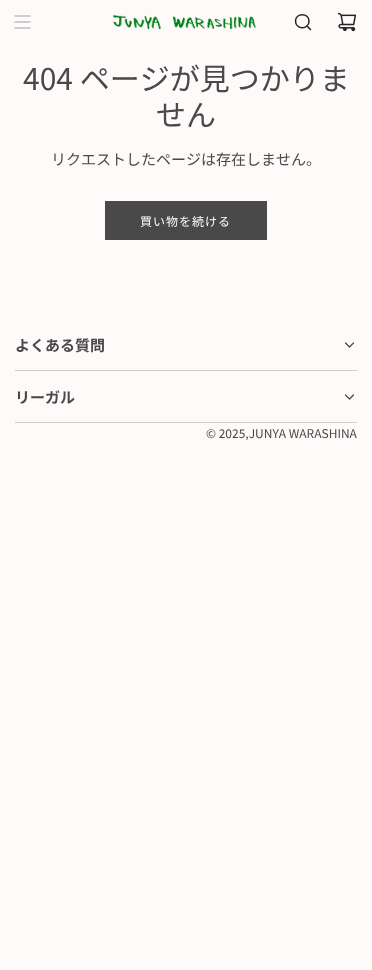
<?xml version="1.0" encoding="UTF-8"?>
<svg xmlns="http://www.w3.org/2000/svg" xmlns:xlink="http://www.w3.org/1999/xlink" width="372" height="970">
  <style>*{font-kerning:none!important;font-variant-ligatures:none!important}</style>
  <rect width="100%" height="100%" fill="#fdfaf9" />
  <path d="M 15 16 h 15 m -15 6 h 15 m -15 6 h 15" fill="none" stroke="#bebebe" stroke-width="1.5" stroke-linecap="round" stroke-linejoin="round" />
  <image x="113" y="15" width="144" height="14" xlink:href="image1.png" />
  <path d="M 307 26 l 3.5 3.5 m -15 -8.5 c 0 9 13.5 9 13.5 0 c 0 -8.5 -13.5 -8.5 -13.5 0 z" fill="none" stroke="#242424" stroke-width="1.5" stroke-linecap="round" stroke-linejoin="round" />
  <image x="337" y="12" width="20" height="20" xlink:href="image2.png" />
  <rect x="105" y="201" width="162" height="39" fill="#494949" />
  <rect x="15" y="370" width="342" height="1" fill="#d0cecd" />
  <path d="M 345.5 343 l 4 4 l 4 -4 m -8 52 l 4 4 l 4 -4" fill="none" stroke="#494949" stroke-width="1.2" stroke-linecap="round" stroke-linejoin="round" />
  <rect x="15" y="422" width="342" height="1" fill="#d0cecd" />
  <text x="23" y="90" style="font-family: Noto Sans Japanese; font-size: 30px; fill: #494949">404 ページが見つかりま</text>
  <text x="156" y="126" style="font-family: Noto Sans Japanese; font-size: 30px; fill: #494949">せん</text>
  <text x="51" y="165" style="font-family: Noto Sans Japanese; font-size: 15px; fill: #494949">リクエストしたページは存在しません。</text>
  <text x="140" y="226" style="font-family: Noto Sans Japanese; font-size: 12px; letter-spacing: 1px; fill: #ffffff">買い物を続ける</text>
  <text x="15" y="351" style="font-family: Noto Sans Japanese; font-size: 15px; font-weight: bold; fill: #494949">よくある質問</text>
  <text x="15" y="403" style="font-family: Noto Sans Japanese; font-size: 15px; font-weight: bold; fill: #494949">リーガル</text>
  <text x="206" y="438" style="font-family: Noto Sans Japanese; font-size: 12px; fill: #494949">© 2025,JUNYA WARASHINA</text>
</svg>
